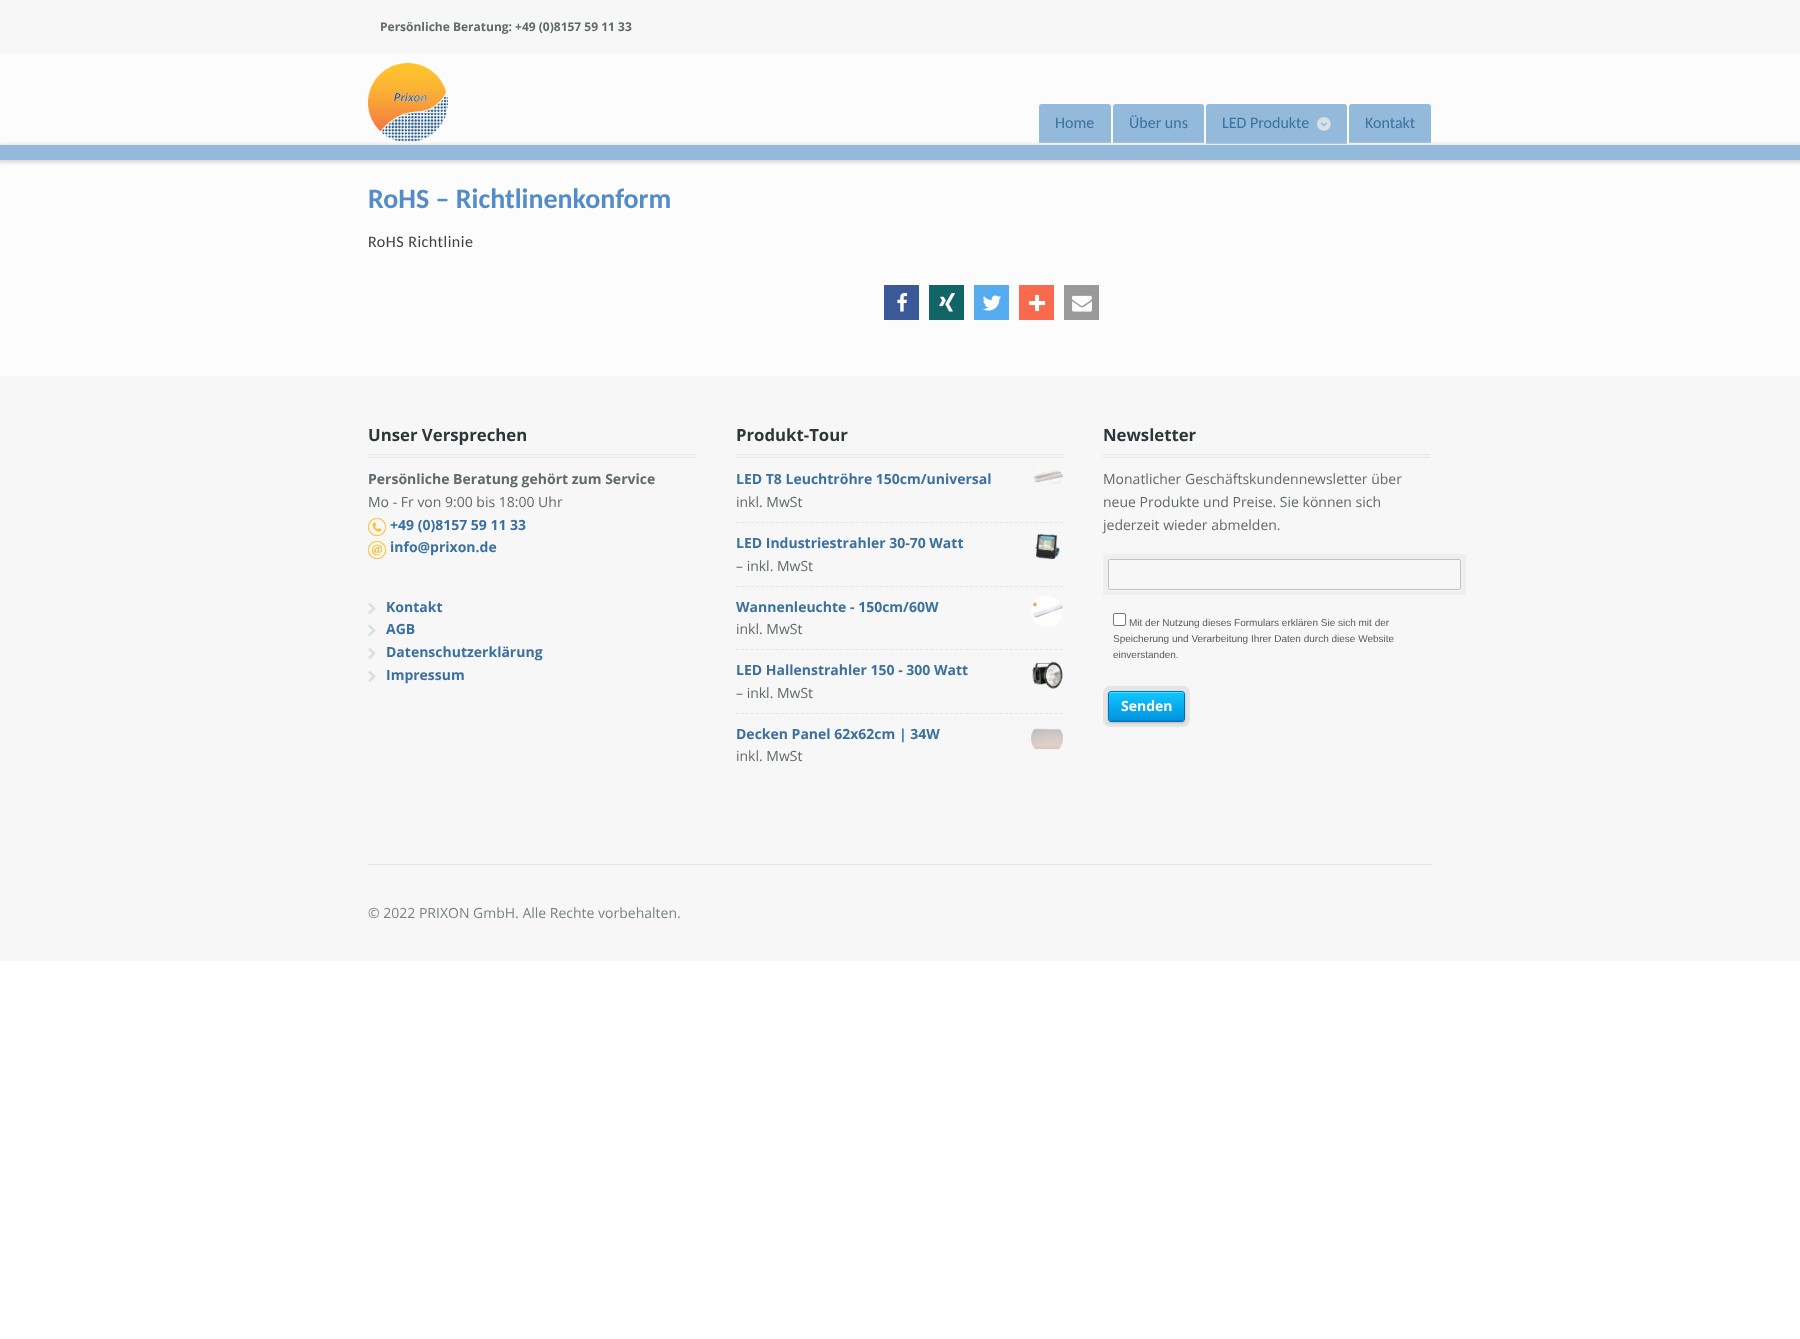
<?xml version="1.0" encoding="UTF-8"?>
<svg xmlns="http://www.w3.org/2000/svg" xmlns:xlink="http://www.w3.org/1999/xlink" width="1800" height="1339">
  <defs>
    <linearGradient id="g1" gradientUnits="userSpaceOnUse" x1="1147" y1="692" x2="1147" y2="721"><stop offset="0" stop-color="#11c6ff" /><stop offset="1" stop-color="#0093dd" /></linearGradient>
  </defs>
  <rect width="100%" height="100%" fill="#ffffff" />
  <rect y="53" width="1800" height="323" fill="#fcfcfc" />
  <rect width="1800" height="53" fill="#f7f7f7" />
  <image x="368" y="63" width="80" height="79" xlink:href="image1.png" />
  <path d="M 1042 103.5 h 66 c 2 0 3.5 1.5 3.5 3.5 v 36.5 h -73 v -36.5 c 0 -2 1.5 -3.5 3.5 -3.5 z" fill="#94badb" stroke="#fcfcfc" />
  <path d="M 1116 103.5 h 85 c 2 0 3.5 1.5 3.5 3.5 v 36.5 h -92 v -36.5 c 0 -2 1.5 -3.5 3.5 -3.5 z" fill="#94badb" stroke="#fcfcfc" />
  <path d="M 1209 103.5 h 135 c 2 0 3.5 1.5 3.5 3.5 v 37.5 h -142 v -37.5 c 0 -2 1.5 -3.5 3.5 -3.5 z" fill="#94badb" stroke="#fcfcfc" />
  <image x="1317" y="117" width="14" height="14" xlink:href="image2.png" />
  <path d="M 1352 103.5 h 76 c 2 0 3.5 1.5 3.5 3.5 v 36.5 h -83 v -36.5 c 0 -2 1.5 -3.5 3.5 -3.5 z" fill="#94badb" stroke="#fcfcfc" />
  <rect x="-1" y="144" width="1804" height="19" fill="#dedede" filter="blur(1.5px)" />
  <rect y="145" width="1800" height="15" fill="#94badb" />
  <rect x="884" y="285" width="35" height="35" rx="0.5" fill="#3b5998" />
  <image x="897" y="292" width="11" height="20" xlink:href="image3.png" />
  <rect x="929" y="285" width="35" height="35" rx="0.5" fill="#126567" />
  <image x="939" y="293" width="16" height="19" xlink:href="image4.png" />
  <rect x="974" y="285" width="35" height="35" rx="0.5" fill="#55acee" />
  <image x="982" y="295" width="19" height="16" xlink:href="image5.png" />
  <rect x="1019" y="285" width="35" height="35" rx="0.5" fill="#f8694d" />
  <image x="1028" y="294" width="18" height="18" xlink:href="image6.png" />
  <rect x="1064" y="285" width="35" height="35" rx="0.5" fill="#999999" />
  <image x="1071" y="295" width="21" height="17" xlink:href="image7.png" />
  <rect y="376" width="1800" height="585" fill="#f7f7f7" />
  <rect x="368" y="454" width="327" height="1" fill="#e3e7e8" />
  <rect x="368" y="457" width="327" height="1" fill="#e3e7e8" />
  <image x="368" y="518" width="18" height="18" xlink:href="image8.png" />
  <image x="368" y="541" width="18" height="18" xlink:href="image9.png" />
  <image x="368" y="602" width="8" height="13" xlink:href="image10.png" />
  <image x="368" y="624" width="8" height="13" xlink:href="image10.png" />
  <image x="368" y="647" width="8" height="13" xlink:href="image10.png" />
  <image x="368" y="670" width="8" height="13" xlink:href="image10.png" />
  <rect x="736" y="454" width="327" height="1" fill="#e3e7e8" />
  <rect x="736" y="457" width="327" height="1" fill="#e3e7e8" />
  <path d="M 736 522.5 h 327" fill="none" stroke="#e3e7e8" stroke-dasharray="3 1.98" />
  <image x="1033" y="470" width="30" height="15" xlink:href="image11.png" />
  <path d="M 736 586.5 h 327" fill="none" stroke="#e3e7e8" stroke-dasharray="3 1.98" />
  <image x="1035" y="533" width="25" height="27" xlink:href="image12.png" />
  <path d="M 736 649.5 h 327" fill="none" stroke="#e3e7e8" stroke-dasharray="3 1.98" />
  <image x="1031" y="596" width="32" height="31" xlink:href="image13.png" />
  <path d="M 736 713.5 h 327" fill="none" stroke="#e3e7e8" stroke-dasharray="3 1.98" />
  <image x="1032" y="661" width="31" height="28" xlink:href="image14.png" />
  <image x="1031" y="728" width="32" height="22" xlink:href="image15.png" />
  <rect x="1103" y="454" width="327" height="1" fill="#e3e7e8" />
  <rect x="1103" y="457" width="327" height="1" fill="#e3e7e8" />
  <path d="M 1108 588 c 0 1 0 2 1 3 h 350 l 2 -1 v -2 c 0 1 -1 2 -2 2 h -349 c -1 0 -2 -1 -2 -2 z" fill="#ffffff" />
  <rect x="1105.5" y="556.5" width="358" height="36" fill="none" stroke="#000000" stroke-opacity="0.03" stroke-width="5" />
  <rect x="1108.5" y="559.5" width="352" height="30" rx="1.5" fill="none" stroke="#bfc3c4" />
  <rect x="1113.5" y="613.5" width="12" height="12" rx="1.5" fill="#ffffff" stroke="#767676" />
  <rect x="1108" y="692" width="77" height="31" rx="3" fill="#000000" fill-opacity="0.2" filter="blur(1px)" />
  <rect x="1105.5" y="688.5" width="82" height="36" rx="4.5" fill="none" stroke="#000000" stroke-opacity="0.07" stroke-width="5" />
  <rect x="1109" y="692" width="75" height="29" rx="2" fill="url(#g1)" />
  <path d="M 1109 714 c 0 10 1 7 14 7 h 47 c 5 0 14 2 14 -2 c 0 0 -1 1 -2 1 h -67 c -5 1 -6 1 -6 -6 z" fill="#0082cc" />
  <path d="M 1111 693 h 72 l 1 1 v -1 l -2 -1 h -72 l -1 2 c 0 0 1 -1 2 -1 z m -2 27 v -4 z" fill="#33e8ff" fill-rule="evenodd" />
  <rect x="1108.5" y="691.5" width="76" height="30" rx="2.5" fill="none" stroke="#0071bb" />
  <rect x="368" y="864" width="1064" height="1" fill="#e3e7e8" />
  <text x="380" y="31" style="font-family: Open Sans; font-size: 12px; font-weight: bold; fill: #60696c">Persönliche Beratung: +49 (0)8157 59 11 33</text>
  <text x="1055" y="128" style="font-family: Carlito; font-size: 16px; fill: #3b709f">Home</text>
  <text x="1129" y="128" style="font-family: Carlito; font-size: 16px; fill: #3b709f">Über uns</text>
  <text x="1222" y="128" style="font-family: Carlito; font-size: 16px; fill: #3b709f">LED Produkte</text>
  <text x="1365" y="128" style="font-family: Carlito; font-size: 16px; fill: #3b709f">Kontakt</text>
  <text x="368" y="208" style="font-family: Carlito; font-size: 28px; font-weight: bold; fill: #548cc9">RoHS – Richtlinenkonform</text>
  <text x="368" y="247" style="font-family: Carlito; font-size: 16px; letter-spacing: 0.5px; fill: #3e3e3e">RoHS Richtlinie</text>
  <text x="368" y="441" style="font-family: Open Sans; font-size: 16.75px; font-weight: bold; fill: #2d3639">Unser Versprechen</text>
  <text x="368" y="484" style="font-family: Open Sans; font-size: 14px; font-weight: bold; fill: #60696c">Persönliche Beratung gehört zum Service</text>
  <text x="368" y="507" style="font-family: Open Sans; font-size: 14px; fill: #60696c">Mo - Fr von 9:00 bis 18:00 Uhr</text>
  <text x="390" y="530" style="font-family: Open Sans; font-size: 14px; font-weight: bold; fill: #3b709f">+49 (0)8157 59 11 33</text>
  <text x="390" y="552" style="font-family: Open Sans; font-size: 14px; font-weight: bold; fill: #3b709f">info@prixon.de</text>
  <text x="386" y="612" style="font-family: Open Sans; font-size: 14px; font-weight: bold; fill: #3b709f">Kontakt</text>
  <text x="386" y="634" style="font-family: Open Sans; font-size: 14px; font-weight: bold; fill: #3b709f">AGB</text>
  <text x="386" y="657" style="font-family: Open Sans; font-size: 14px; font-weight: bold; fill: #3b709f">Datenschutzerklärung</text>
  <text x="386" y="680" style="font-family: Open Sans; font-size: 14px; font-weight: bold; fill: #3b709f">Impressum</text>
  <text x="736" y="441" style="font-family: Open Sans; font-size: 16.75px; font-weight: bold; fill: #2d3639">Produkt-Tour</text>
  <text x="736" y="484" style="font-family: Open Sans; font-size: 14px; font-weight: bold; fill: #3b709f">LED T8 Leuchtröhre 150cm/universal</text>
  <text x="736" y="507" style="font-family: Open Sans; font-size: 14px; fill: #60696c">inkl. MwSt</text>
  <text x="736" y="548" style="font-family: Open Sans; font-size: 14px; font-weight: bold; fill: #3b709f">LED Industriestrahler 30-70 Watt</text>
  <text x="736" y="571" style="font-family: Open Sans; font-size: 14px; fill: #60696c">– inkl. MwSt</text>
  <text x="736" y="612" style="font-family: Open Sans; font-size: 14px; font-weight: bold; fill: #3b709f">Wannenleuchte - 150cm/60W</text>
  <text x="736" y="634" style="font-family: Open Sans; font-size: 14px; fill: #60696c">inkl. MwSt</text>
  <text x="736" y="675" style="font-family: Open Sans; font-size: 14px; font-weight: bold; fill: #3b709f">LED Hallenstrahler 150 - 300 Watt</text>
  <text x="736" y="698" style="font-family: Open Sans; font-size: 14px; fill: #60696c">– inkl. MwSt</text>
  <text x="736" y="739" style="font-family: Open Sans; font-size: 14px; font-weight: bold; fill: #3b709f">Decken Panel 62x62cm | 34W</text>
  <text x="736" y="761" style="font-family: Open Sans; font-size: 14px; fill: #60696c">inkl. MwSt</text>
  <text x="1103" y="441" style="font-family: Open Sans; font-size: 16.75px; font-weight: bold; fill: #2d3639">Newsletter</text>
  <text x="1103" y="484" style="font-family: Open Sans; font-size: 14px; fill: #60696c">Monatlicher Geschäftskundennewsletter über</text>
  <text x="1103" y="507" style="font-family: Open Sans; font-size: 14px; fill: #60696c">neue Produkte und Preise. Sie können sich</text>
  <text x="1103" y="530" style="font-family: Open Sans; font-size: 14px; fill: #60696c">jederzeit wieder abmelden.</text>
  <text x="1129" y="626" style="font-family: Liberation Sans; font-size: 10px; fill: #5a5a5a">Mit der Nutzung dieses Formulars erklären Sie sich mit der</text>
  <text x="1113" y="642" style="font-family: Liberation Sans; font-size: 10px; fill: #5a5a5a">Speicherung und Verarbeitung Ihrer Daten durch diese Website</text>
  <text x="1113" y="658" style="font-family: Liberation Sans; font-size: 10px; fill: #5a5a5a">einverstanden.</text>
  <text x="1121" y="711" style="font-family: Open Sans; font-size: 14px; font-weight: bold; fill: #ffffff">Senden</text>
  <text x="368" y="918" style="font-family: Open Sans; font-size: 14px; fill: #788387">© 2022 PRIXON GmbH. Alle Rechte vorbehalten.</text>
</svg>
